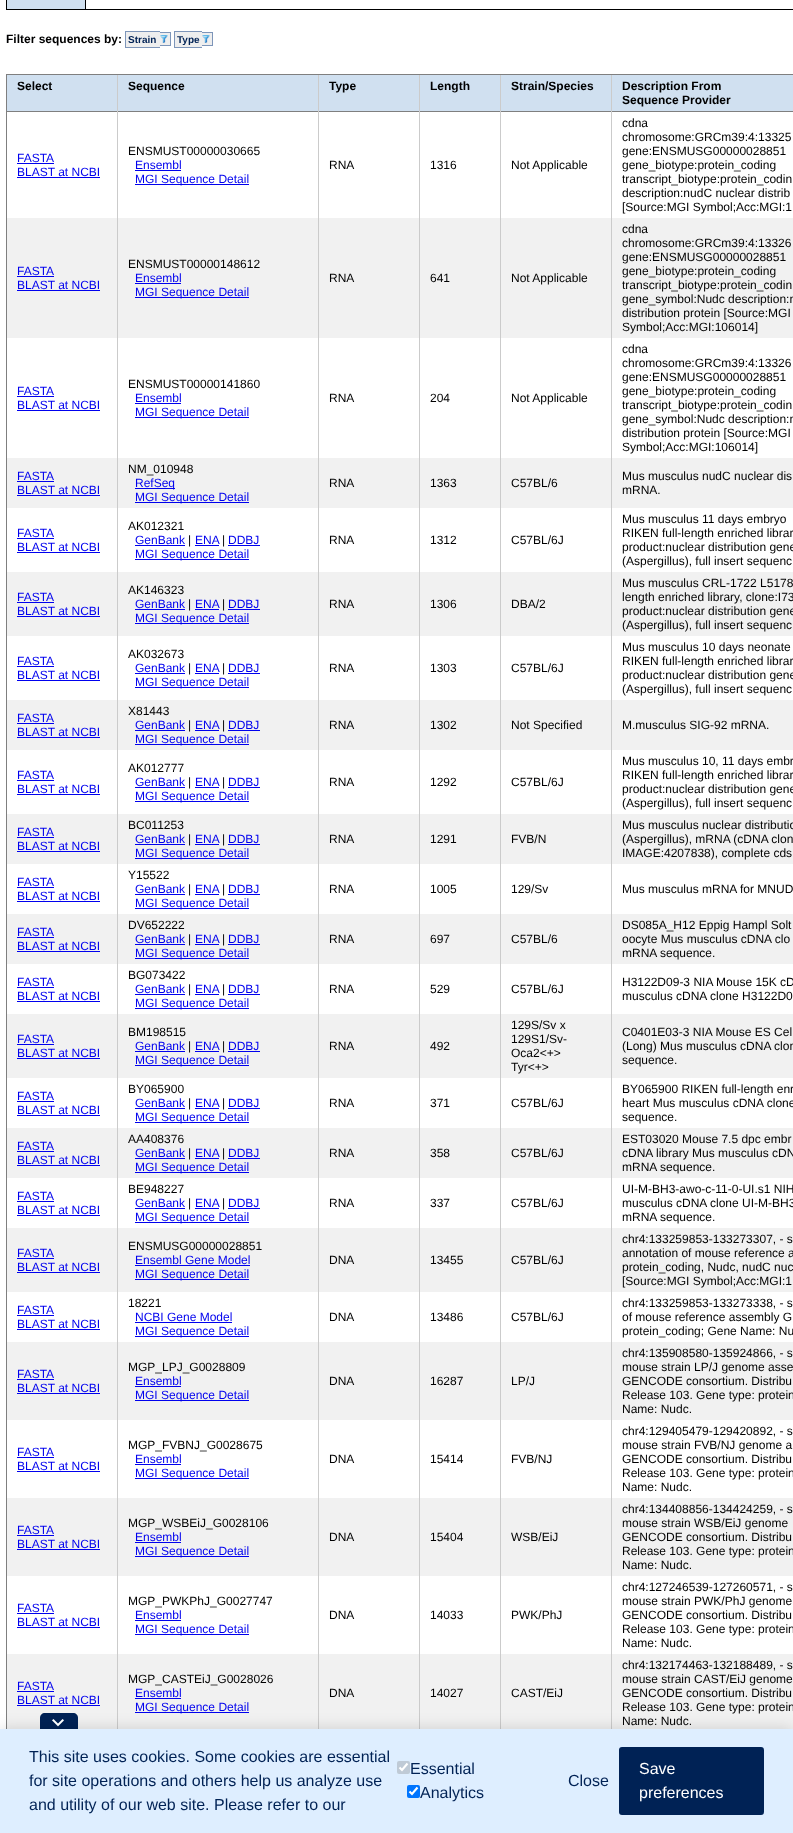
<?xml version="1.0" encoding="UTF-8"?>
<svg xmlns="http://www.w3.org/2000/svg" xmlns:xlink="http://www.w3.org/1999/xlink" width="793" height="1833">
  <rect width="100%" height="100%" fill="#ffffff" />
  <rect x="6" y="9" width="787" height="1" fill="#000000" />
  <rect x="6" width="1" height="10" fill="#000000" />
  <rect x="7" width="78" height="9" fill="#d0e0f0" />
  <rect x="85" width="1" height="10" fill="#000000" />
  <rect x="126" y="32" width="34" height="15" fill="#eeeeee" />
  <rect x="125" y="31" width="35" height="1" fill="#7d95b9" />
  <rect x="125" y="47" width="35" height="1" fill="#7d95b9" />
  <rect x="125" y="31" width="1" height="17" fill="#7d95b9" />
  <rect x="160" y="33" width="10" height="12" fill="#eeeeee" />
  <rect x="160" y="32" width="11" height="1" fill="#7d95b9" />
  <rect x="170" y="32" width="1" height="14" fill="#7d95b9" />
  <rect x="160" y="45" width="11" height="1" fill="#7d95b9" />
  <image x="160" y="35" width="8" height="8" xlink:href="image1.png" />
  <rect x="175" y="32" width="27" height="15" fill="#eeeeee" />
  <rect x="174" y="31" width="28" height="1" fill="#7d95b9" />
  <rect x="174" y="47" width="28" height="1" fill="#7d95b9" />
  <rect x="174" y="31" width="1" height="17" fill="#7d95b9" />
  <rect x="202" y="33" width="10" height="12" fill="#eeeeee" />
  <rect x="202" y="32" width="11" height="1" fill="#7d95b9" />
  <rect x="212" y="32" width="1" height="14" fill="#7d95b9" />
  <rect x="202" y="45" width="11" height="1" fill="#7d95b9" />
  <image x="202" y="35" width="8" height="8" xlink:href="image1.png" />
  <rect x="6.5" y="74.5" width="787" height="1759" fill="none" stroke="#7f7f7f" />
  <rect x="7" y="75" width="110" height="36" fill="#d0e0f0" />
  <rect x="117" y="75" width="1" height="36" fill="#cbcbcb" />
  <rect x="118" y="75" width="200" height="36" fill="#d0e0f0" />
  <rect x="318" y="75" width="1" height="36" fill="#cbcbcb" />
  <rect x="319" y="75" width="100" height="36" fill="#d0e0f0" />
  <rect x="419" y="75" width="1" height="36" fill="#cbcbcb" />
  <rect x="420" y="75" width="80" height="36" fill="#d0e0f0" />
  <rect x="500" y="75" width="1" height="36" fill="#cbcbcb" />
  <rect x="501" y="75" width="110" height="36" fill="#d0e0f0" />
  <rect x="611" y="75" width="1" height="36" fill="#cbcbcb" />
  <rect x="612" y="75" width="181" height="36" fill="#d0e0f0" />
  <rect x="7" y="111" width="786" height="1" fill="#7f7f7f" />
  <rect x="117" y="111" width="1" height="107" fill="#cbcbcb" />
  <rect x="17" y="163" width="37" height="1" fill="#0000ee" />
  <rect x="17" y="177" width="83" height="1" fill="#0000ee" />
  <rect x="318" y="111" width="1" height="107" fill="#cbcbcb" />
  <rect x="135" y="170" width="46" height="1" fill="#0000ee" />
  <rect x="135" y="184" width="114" height="1" fill="#0000ee" />
  <rect x="419" y="111" width="1" height="107" fill="#cbcbcb" />
  <rect x="500" y="111" width="1" height="107" fill="#cbcbcb" />
  <rect x="611" y="111" width="1" height="107" fill="#cbcbcb" />
  <rect x="7" y="218" width="786" height="120" fill="#f1f1f1" />
  <rect x="117" y="218" width="1" height="240" fill="#cbcbcb" />
  <rect x="17" y="276" width="37" height="1" fill="#0000ee" />
  <rect x="17" y="290" width="83" height="1" fill="#0000ee" />
  <rect x="318" y="218" width="1" height="240" fill="#cbcbcb" />
  <rect x="135" y="283" width="46" height="1" fill="#0000ee" />
  <rect x="135" y="297" width="114" height="1" fill="#0000ee" />
  <rect x="419" y="218" width="1" height="240" fill="#cbcbcb" />
  <rect x="500" y="218" width="1" height="240" fill="#cbcbcb" />
  <rect x="611" y="218" width="1" height="240" fill="#cbcbcb" />
  <rect x="17" y="396" width="37" height="1" fill="#0000ee" />
  <rect x="17" y="410" width="83" height="1" fill="#0000ee" />
  <rect x="135" y="403" width="46" height="1" fill="#0000ee" />
  <rect x="135" y="417" width="114" height="1" fill="#0000ee" />
  <rect x="7" y="458" width="786" height="50" fill="#f1f1f1" />
  <rect x="117" y="458" width="1" height="114" fill="#cbcbcb" />
  <rect x="17" y="481" width="37" height="1" fill="#0000ee" />
  <rect x="17" y="495" width="83" height="1" fill="#0000ee" />
  <rect x="318" y="458" width="1" height="114" fill="#cbcbcb" />
  <rect x="135" y="488" width="40" height="1" fill="#0000ee" />
  <rect x="135" y="502" width="114" height="1" fill="#0000ee" />
  <rect x="419" y="458" width="1" height="114" fill="#cbcbcb" />
  <rect x="500" y="458" width="1" height="114" fill="#cbcbcb" />
  <rect x="611" y="458" width="1" height="114" fill="#cbcbcb" />
  <rect x="17" y="538" width="37" height="1" fill="#0000ee" />
  <rect x="17" y="552" width="83" height="1" fill="#0000ee" />
  <rect x="135" y="545" width="50" height="1" fill="#0000ee" />
  <rect x="195" y="545" width="24" height="1" fill="#0000ee" />
  <rect x="228" y="545" width="32" height="1" fill="#0000ee" />
  <rect x="135" y="559" width="114" height="1" fill="#0000ee" />
  <rect x="7" y="572" width="786" height="64" fill="#f1f1f1" />
  <rect x="117" y="572" width="1" height="128" fill="#cbcbcb" />
  <rect x="17" y="602" width="37" height="1" fill="#0000ee" />
  <rect x="17" y="616" width="83" height="1" fill="#0000ee" />
  <rect x="318" y="572" width="1" height="128" fill="#cbcbcb" />
  <rect x="135" y="609" width="50" height="1" fill="#0000ee" />
  <rect x="195" y="609" width="24" height="1" fill="#0000ee" />
  <rect x="228" y="609" width="32" height="1" fill="#0000ee" />
  <rect x="135" y="623" width="114" height="1" fill="#0000ee" />
  <rect x="419" y="572" width="1" height="128" fill="#cbcbcb" />
  <rect x="500" y="572" width="1" height="128" fill="#cbcbcb" />
  <rect x="611" y="572" width="1" height="128" fill="#cbcbcb" />
  <rect x="17" y="666" width="37" height="1" fill="#0000ee" />
  <rect x="17" y="680" width="83" height="1" fill="#0000ee" />
  <rect x="135" y="673" width="50" height="1" fill="#0000ee" />
  <rect x="195" y="673" width="24" height="1" fill="#0000ee" />
  <rect x="228" y="673" width="32" height="1" fill="#0000ee" />
  <rect x="135" y="687" width="114" height="1" fill="#0000ee" />
  <rect x="7" y="700" width="786" height="50" fill="#f1f1f1" />
  <rect x="117" y="700" width="1" height="114" fill="#cbcbcb" />
  <rect x="17" y="723" width="37" height="1" fill="#0000ee" />
  <rect x="17" y="737" width="83" height="1" fill="#0000ee" />
  <rect x="318" y="700" width="1" height="114" fill="#cbcbcb" />
  <rect x="135" y="730" width="50" height="1" fill="#0000ee" />
  <rect x="195" y="730" width="24" height="1" fill="#0000ee" />
  <rect x="228" y="730" width="32" height="1" fill="#0000ee" />
  <rect x="135" y="744" width="114" height="1" fill="#0000ee" />
  <rect x="419" y="700" width="1" height="114" fill="#cbcbcb" />
  <rect x="500" y="700" width="1" height="114" fill="#cbcbcb" />
  <rect x="611" y="700" width="1" height="114" fill="#cbcbcb" />
  <rect x="17" y="780" width="37" height="1" fill="#0000ee" />
  <rect x="17" y="794" width="83" height="1" fill="#0000ee" />
  <rect x="135" y="787" width="50" height="1" fill="#0000ee" />
  <rect x="195" y="787" width="24" height="1" fill="#0000ee" />
  <rect x="228" y="787" width="32" height="1" fill="#0000ee" />
  <rect x="135" y="801" width="114" height="1" fill="#0000ee" />
  <rect x="7" y="814" width="786" height="50" fill="#f1f1f1" />
  <rect x="117" y="814" width="1" height="100" fill="#cbcbcb" />
  <rect x="17" y="837" width="37" height="1" fill="#0000ee" />
  <rect x="17" y="851" width="83" height="1" fill="#0000ee" />
  <rect x="318" y="814" width="1" height="100" fill="#cbcbcb" />
  <rect x="135" y="844" width="50" height="1" fill="#0000ee" />
  <rect x="195" y="844" width="24" height="1" fill="#0000ee" />
  <rect x="228" y="844" width="32" height="1" fill="#0000ee" />
  <rect x="135" y="858" width="114" height="1" fill="#0000ee" />
  <rect x="419" y="814" width="1" height="100" fill="#cbcbcb" />
  <rect x="500" y="814" width="1" height="100" fill="#cbcbcb" />
  <rect x="611" y="814" width="1" height="100" fill="#cbcbcb" />
  <rect x="17" y="887" width="37" height="1" fill="#0000ee" />
  <rect x="17" y="901" width="83" height="1" fill="#0000ee" />
  <rect x="135" y="894" width="50" height="1" fill="#0000ee" />
  <rect x="195" y="894" width="24" height="1" fill="#0000ee" />
  <rect x="228" y="894" width="32" height="1" fill="#0000ee" />
  <rect x="135" y="908" width="114" height="1" fill="#0000ee" />
  <rect x="7" y="914" width="786" height="50" fill="#f1f1f1" />
  <rect x="117" y="914" width="1" height="100" fill="#cbcbcb" />
  <rect x="17" y="937" width="37" height="1" fill="#0000ee" />
  <rect x="17" y="951" width="83" height="1" fill="#0000ee" />
  <rect x="318" y="914" width="1" height="100" fill="#cbcbcb" />
  <rect x="135" y="944" width="50" height="1" fill="#0000ee" />
  <rect x="195" y="944" width="24" height="1" fill="#0000ee" />
  <rect x="228" y="944" width="32" height="1" fill="#0000ee" />
  <rect x="135" y="958" width="114" height="1" fill="#0000ee" />
  <rect x="419" y="914" width="1" height="100" fill="#cbcbcb" />
  <rect x="500" y="914" width="1" height="100" fill="#cbcbcb" />
  <rect x="611" y="914" width="1" height="100" fill="#cbcbcb" />
  <rect x="17" y="987" width="37" height="1" fill="#0000ee" />
  <rect x="17" y="1001" width="83" height="1" fill="#0000ee" />
  <rect x="135" y="994" width="50" height="1" fill="#0000ee" />
  <rect x="195" y="994" width="24" height="1" fill="#0000ee" />
  <rect x="228" y="994" width="32" height="1" fill="#0000ee" />
  <rect x="135" y="1008" width="114" height="1" fill="#0000ee" />
  <rect x="7" y="1014" width="786" height="64" fill="#f1f1f1" />
  <rect x="117" y="1014" width="1" height="114" fill="#cbcbcb" />
  <rect x="17" y="1044" width="37" height="1" fill="#0000ee" />
  <rect x="17" y="1058" width="83" height="1" fill="#0000ee" />
  <rect x="318" y="1014" width="1" height="114" fill="#cbcbcb" />
  <rect x="135" y="1051" width="50" height="1" fill="#0000ee" />
  <rect x="195" y="1051" width="24" height="1" fill="#0000ee" />
  <rect x="228" y="1051" width="32" height="1" fill="#0000ee" />
  <rect x="135" y="1065" width="114" height="1" fill="#0000ee" />
  <rect x="419" y="1014" width="1" height="114" fill="#cbcbcb" />
  <rect x="500" y="1014" width="1" height="114" fill="#cbcbcb" />
  <rect x="611" y="1014" width="1" height="114" fill="#cbcbcb" />
  <rect x="17" y="1101" width="37" height="1" fill="#0000ee" />
  <rect x="17" y="1115" width="83" height="1" fill="#0000ee" />
  <rect x="135" y="1108" width="50" height="1" fill="#0000ee" />
  <rect x="195" y="1108" width="24" height="1" fill="#0000ee" />
  <rect x="228" y="1108" width="32" height="1" fill="#0000ee" />
  <rect x="135" y="1122" width="114" height="1" fill="#0000ee" />
  <rect x="7" y="1128" width="786" height="50" fill="#f1f1f1" />
  <rect x="117" y="1128" width="1" height="100" fill="#cbcbcb" />
  <rect x="17" y="1151" width="37" height="1" fill="#0000ee" />
  <rect x="17" y="1165" width="83" height="1" fill="#0000ee" />
  <rect x="318" y="1128" width="1" height="100" fill="#cbcbcb" />
  <rect x="135" y="1158" width="50" height="1" fill="#0000ee" />
  <rect x="195" y="1158" width="24" height="1" fill="#0000ee" />
  <rect x="228" y="1158" width="32" height="1" fill="#0000ee" />
  <rect x="135" y="1172" width="114" height="1" fill="#0000ee" />
  <rect x="419" y="1128" width="1" height="100" fill="#cbcbcb" />
  <rect x="500" y="1128" width="1" height="100" fill="#cbcbcb" />
  <rect x="611" y="1128" width="1" height="100" fill="#cbcbcb" />
  <rect x="17" y="1201" width="37" height="1" fill="#0000ee" />
  <rect x="17" y="1215" width="83" height="1" fill="#0000ee" />
  <rect x="135" y="1208" width="50" height="1" fill="#0000ee" />
  <rect x="195" y="1208" width="24" height="1" fill="#0000ee" />
  <rect x="228" y="1208" width="32" height="1" fill="#0000ee" />
  <rect x="135" y="1222" width="114" height="1" fill="#0000ee" />
  <rect x="7" y="1228" width="786" height="64" fill="#f1f1f1" />
  <rect x="117" y="1228" width="1" height="114" fill="#cbcbcb" />
  <rect x="17" y="1258" width="37" height="1" fill="#0000ee" />
  <rect x="17" y="1272" width="83" height="1" fill="#0000ee" />
  <rect x="318" y="1228" width="1" height="114" fill="#cbcbcb" />
  <rect x="135" y="1265" width="115" height="1" fill="#0000ee" />
  <rect x="135" y="1279" width="114" height="1" fill="#0000ee" />
  <rect x="419" y="1228" width="1" height="114" fill="#cbcbcb" />
  <rect x="500" y="1228" width="1" height="114" fill="#cbcbcb" />
  <rect x="611" y="1228" width="1" height="114" fill="#cbcbcb" />
  <rect x="17" y="1315" width="37" height="1" fill="#0000ee" />
  <rect x="17" y="1329" width="83" height="1" fill="#0000ee" />
  <rect x="135" y="1322" width="97" height="1" fill="#0000ee" />
  <rect x="135" y="1336" width="114" height="1" fill="#0000ee" />
  <rect x="7" y="1342" width="786" height="78" fill="#f1f1f1" />
  <rect x="117" y="1342" width="1" height="156" fill="#cbcbcb" />
  <rect x="17" y="1379" width="37" height="1" fill="#0000ee" />
  <rect x="17" y="1393" width="83" height="1" fill="#0000ee" />
  <rect x="318" y="1342" width="1" height="156" fill="#cbcbcb" />
  <rect x="135" y="1386" width="46" height="1" fill="#0000ee" />
  <rect x="135" y="1400" width="114" height="1" fill="#0000ee" />
  <rect x="419" y="1342" width="1" height="156" fill="#cbcbcb" />
  <rect x="500" y="1342" width="1" height="156" fill="#cbcbcb" />
  <rect x="611" y="1342" width="1" height="156" fill="#cbcbcb" />
  <rect x="17" y="1457" width="37" height="1" fill="#0000ee" />
  <rect x="17" y="1471" width="83" height="1" fill="#0000ee" />
  <rect x="135" y="1464" width="46" height="1" fill="#0000ee" />
  <rect x="135" y="1478" width="114" height="1" fill="#0000ee" />
  <rect x="7" y="1498" width="786" height="78" fill="#f1f1f1" />
  <rect x="117" y="1498" width="1" height="156" fill="#cbcbcb" />
  <rect x="17" y="1535" width="37" height="1" fill="#0000ee" />
  <rect x="17" y="1549" width="83" height="1" fill="#0000ee" />
  <rect x="318" y="1498" width="1" height="156" fill="#cbcbcb" />
  <rect x="135" y="1542" width="46" height="1" fill="#0000ee" />
  <rect x="135" y="1556" width="114" height="1" fill="#0000ee" />
  <rect x="419" y="1498" width="1" height="156" fill="#cbcbcb" />
  <rect x="500" y="1498" width="1" height="156" fill="#cbcbcb" />
  <rect x="611" y="1498" width="1" height="156" fill="#cbcbcb" />
  <rect x="17" y="1613" width="37" height="1" fill="#0000ee" />
  <rect x="17" y="1627" width="83" height="1" fill="#0000ee" />
  <rect x="135" y="1620" width="46" height="1" fill="#0000ee" />
  <rect x="135" y="1634" width="114" height="1" fill="#0000ee" />
  <rect x="7" y="1654" width="786" height="75" fill="#f1f1f1" />
  <rect x="117" y="1654" width="1" height="78" fill="#cbcbcb" />
  <rect x="17" y="1691" width="37" height="1" fill="#0000ee" />
  <rect x="17" y="1705" width="83" height="1" fill="#0000ee" />
  <rect x="318" y="1654" width="1" height="78" fill="#cbcbcb" />
  <rect x="135" y="1698" width="46" height="1" fill="#0000ee" />
  <rect x="135" y="1712" width="114" height="1" fill="#0000ee" />
  <rect x="419" y="1654" width="1" height="78" fill="#cbcbcb" />
  <rect x="500" y="1654" width="1" height="78" fill="#cbcbcb" />
  <rect x="611" y="1654" width="1" height="78" fill="#cbcbcb" />
  <path d="M 45 1713 h 28 c 3 0 5 2 5 5 v 11 h -38 v -11 c 0 -3 2 -5 5 -5 z" fill="#002255" />
  <rect y="1729" width="793" height="104" fill="#000000" fill-opacity="0.15" filter="blur(8px)" />
  <image x="52" y="1719" width="12" height="8" xlink:href="image2.png" />
  <rect y="1729" width="793" height="104" fill="#deeeff" />
  <rect x="397" y="1761" width="13" height="13" rx="2" fill="#bfcad6" />
  <path d="M 399.5 1767.5 l 2.5 2.5 l 5.5 -6.5" fill="none" stroke="#ffffff" stroke-width="2.1" />
  <rect x="407" y="1785" width="13" height="13" rx="2" fill="#0075ff" />
  <path d="M 409.5 1791.5 l 2.5 2.5 l 5.5 -6.5" fill="none" stroke="#ffffff" stroke-width="2.1" />
  <rect x="619" y="1747" width="145" height="68" rx="3" fill="#002255" />
  <text x="6" y="43" style="font-family: Liberation Sans; font-size: 12px; font-weight: bold; fill: #000001">Filter sequences by:</text>
  <text x="128" y="43" style="font-family: Liberation Sans; font-size: 10px; font-weight: bold; fill: #002255">Strain</text>
  <text x="177" y="43" style="font-family: Liberation Sans; font-size: 10px; font-weight: bold; fill: #002255">Type</text>
  <text x="17" y="90" style="font-family: Liberation Sans; font-size: 12px; font-weight: bold; fill: #000001">Select</text>
  <text x="128" y="90" style="font-family: Liberation Sans; font-size: 12px; font-weight: bold; fill: #000001">Sequence</text>
  <text x="329" y="90" style="font-family: Liberation Sans; font-size: 12px; font-weight: bold; fill: #000001">Type</text>
  <text x="430" y="90" style="font-family: Liberation Sans; font-size: 12px; font-weight: bold; fill: #000001">Length</text>
  <text x="511" y="90" style="font-family: Liberation Sans; font-size: 12px; font-weight: bold; fill: #000001">Strain/Species</text>
  <text x="622" y="90" style="font-family: Liberation Sans; font-size: 12px; font-weight: bold; fill: #000001">Description From</text>
  <text x="622" y="104" style="font-family: Liberation Sans; font-size: 12px; font-weight: bold; fill: #000001">Sequence Provider</text>
  <text x="17" y="162" style="font-family: Liberation Sans; font-size: 12px; fill: #0000ee">FASTA</text>
  <text x="17" y="176" style="font-family: Liberation Sans; font-size: 12px; fill: #0000ee">BLAST at NCBI</text>
  <text x="128" y="155" style="font-family: Liberation Sans; font-size: 12px; fill: #000001">ENSMUST00000030665</text>
  <text x="135" y="169" style="font-family: Liberation Sans; font-size: 12px; fill: #0000ee">Ensembl</text>
  <text x="135" y="183" style="font-family: Liberation Sans; font-size: 12px; fill: #0000ee">MGI Sequence Detail</text>
  <text x="329" y="169" style="font-family: Liberation Sans; font-size: 12px; fill: #000001">RNA</text>
  <text x="430" y="169" style="font-family: Liberation Sans; font-size: 12px; fill: #000001">1316</text>
  <text x="511" y="169" style="font-family: Liberation Sans; font-size: 12px; fill: #000001">Not Applicable</text>
  <text x="622" y="127" style="font-family: Liberation Sans; font-size: 12px; fill: #000001">cdna</text>
  <text x="622" y="141" style="font-family: Liberation Sans; font-size: 12px; fill: #000001">chromosome:GRCm39:4:13325</text>
  <text x="622" y="155" style="font-family: Liberation Sans; font-size: 12px; fill: #000001">gene:ENSMUSG00000028851</text>
  <text x="622" y="169" style="font-family: Liberation Sans; font-size: 12px; fill: #000001">gene_biotype:protein_coding</text>
  <text x="622" y="183" style="font-family: Liberation Sans; font-size: 12px; fill: #000001">transcript_biotype:protein_codin</text>
  <text x="622" y="197" style="font-family: Liberation Sans; font-size: 12px; fill: #000001">description:nudC nuclear distrib</text>
  <text x="622" y="211" style="font-family: Liberation Sans; font-size: 12px; fill: #000001">[Source:MGI Symbol;Acc:MGI:1</text>
  <text x="17" y="275" style="font-family: Liberation Sans; font-size: 12px; fill: #0000ee">FASTA</text>
  <text x="17" y="289" style="font-family: Liberation Sans; font-size: 12px; fill: #0000ee">BLAST at NCBI</text>
  <text x="128" y="268" style="font-family: Liberation Sans; font-size: 12px; fill: #000001">ENSMUST00000148612</text>
  <text x="135" y="282" style="font-family: Liberation Sans; font-size: 12px; fill: #0000ee">Ensembl</text>
  <text x="135" y="296" style="font-family: Liberation Sans; font-size: 12px; fill: #0000ee">MGI Sequence Detail</text>
  <text x="329" y="282" style="font-family: Liberation Sans; font-size: 12px; fill: #000001">RNA</text>
  <text x="430" y="282" style="font-family: Liberation Sans; font-size: 12px; fill: #000001">641</text>
  <text x="511" y="282" style="font-family: Liberation Sans; font-size: 12px; fill: #000001">Not Applicable</text>
  <text x="622" y="233" style="font-family: Liberation Sans; font-size: 12px; fill: #000001">cdna</text>
  <text x="622" y="247" style="font-family: Liberation Sans; font-size: 12px; fill: #000001">chromosome:GRCm39:4:13326</text>
  <text x="622" y="261" style="font-family: Liberation Sans; font-size: 12px; fill: #000001">gene:ENSMUSG00000028851</text>
  <text x="622" y="275" style="font-family: Liberation Sans; font-size: 12px; fill: #000001">gene_biotype:protein_coding</text>
  <text x="622" y="289" style="font-family: Liberation Sans; font-size: 12px; fill: #000001">transcript_biotype:protein_codin</text>
  <text x="622" y="303" style="font-family: Liberation Sans; font-size: 12px; fill: #000001">gene_symbol:Nudc description:n</text>
  <text x="622" y="317" style="font-family: Liberation Sans; font-size: 12px; fill: #000001">distribution protein [Source:MGI</text>
  <text x="622" y="331" style="font-family: Liberation Sans; font-size: 12px; fill: #000001">Symbol;Acc:MGI:106014]</text>
  <text x="17" y="395" style="font-family: Liberation Sans; font-size: 12px; fill: #0000ee">FASTA</text>
  <text x="17" y="409" style="font-family: Liberation Sans; font-size: 12px; fill: #0000ee">BLAST at NCBI</text>
  <text x="128" y="388" style="font-family: Liberation Sans; font-size: 12px; fill: #000001">ENSMUST00000141860</text>
  <text x="135" y="402" style="font-family: Liberation Sans; font-size: 12px; fill: #0000ee">Ensembl</text>
  <text x="135" y="416" style="font-family: Liberation Sans; font-size: 12px; fill: #0000ee">MGI Sequence Detail</text>
  <text x="329" y="402" style="font-family: Liberation Sans; font-size: 12px; fill: #000001">RNA</text>
  <text x="430" y="402" style="font-family: Liberation Sans; font-size: 12px; fill: #000001">204</text>
  <text x="511" y="402" style="font-family: Liberation Sans; font-size: 12px; fill: #000001">Not Applicable</text>
  <text x="622" y="353" style="font-family: Liberation Sans; font-size: 12px; fill: #000001">cdna</text>
  <text x="622" y="367" style="font-family: Liberation Sans; font-size: 12px; fill: #000001">chromosome:GRCm39:4:13326</text>
  <text x="622" y="381" style="font-family: Liberation Sans; font-size: 12px; fill: #000001">gene:ENSMUSG00000028851</text>
  <text x="622" y="395" style="font-family: Liberation Sans; font-size: 12px; fill: #000001">gene_biotype:protein_coding</text>
  <text x="622" y="409" style="font-family: Liberation Sans; font-size: 12px; fill: #000001">transcript_biotype:protein_codin</text>
  <text x="622" y="423" style="font-family: Liberation Sans; font-size: 12px; fill: #000001">gene_symbol:Nudc description:n</text>
  <text x="622" y="437" style="font-family: Liberation Sans; font-size: 12px; fill: #000001">distribution protein [Source:MGI</text>
  <text x="622" y="451" style="font-family: Liberation Sans; font-size: 12px; fill: #000001">Symbol;Acc:MGI:106014]</text>
  <text x="17" y="480" style="font-family: Liberation Sans; font-size: 12px; fill: #0000ee">FASTA</text>
  <text x="17" y="494" style="font-family: Liberation Sans; font-size: 12px; fill: #0000ee">BLAST at NCBI</text>
  <text x="128" y="473" style="font-family: Liberation Sans; font-size: 12px; fill: #000001">NM_010948</text>
  <text x="135" y="487" style="font-family: Liberation Sans; font-size: 12px; fill: #0000ee">RefSeq</text>
  <text x="135" y="501" style="font-family: Liberation Sans; font-size: 12px; fill: #0000ee">MGI Sequence Detail</text>
  <text x="329" y="487" style="font-family: Liberation Sans; font-size: 12px; fill: #000001">RNA</text>
  <text x="430" y="487" style="font-family: Liberation Sans; font-size: 12px; fill: #000001">1363</text>
  <text x="511" y="487" style="font-family: Liberation Sans; font-size: 12px; fill: #000001">C57BL/6</text>
  <text x="622" y="480" style="font-family: Liberation Sans; font-size: 12px; fill: #000001">Mus musculus nudC nuclear dis</text>
  <text x="622" y="494" style="font-family: Liberation Sans; font-size: 12px; fill: #000001">mRNA.</text>
  <text x="17" y="537" style="font-family: Liberation Sans; font-size: 12px; fill: #0000ee">FASTA</text>
  <text x="17" y="551" style="font-family: Liberation Sans; font-size: 12px; fill: #0000ee">BLAST at NCBI</text>
  <text x="128" y="530" style="font-family: Liberation Sans; font-size: 12px; fill: #000001">AK012321</text>
  <text x="135" y="544" style="font-family: Liberation Sans; font-size: 12px; fill: #0000ee">GenBank</text>
  <text x="188" y="544" style="font-family: Liberation Sans; font-size: 12px; fill: #000001">|</text>
  <text x="195" y="544" style="font-family: Liberation Sans; font-size: 12px; fill: #0000ee">ENA</text>
  <text x="222" y="544" style="font-family: Liberation Sans; font-size: 12px; fill: #000001">|</text>
  <text x="228" y="544" style="font-family: Liberation Sans; font-size: 12px; fill: #0000ee">DDBJ</text>
  <text x="135" y="558" style="font-family: Liberation Sans; font-size: 12px; fill: #0000ee">MGI Sequence Detail</text>
  <text x="329" y="544" style="font-family: Liberation Sans; font-size: 12px; fill: #000001">RNA</text>
  <text x="430" y="544" style="font-family: Liberation Sans; font-size: 12px; fill: #000001">1312</text>
  <text x="511" y="544" style="font-family: Liberation Sans; font-size: 12px; fill: #000001">C57BL/6J</text>
  <text x="622" y="523" style="font-family: Liberation Sans; font-size: 12px; fill: #000001">Mus musculus 11 days embryo</text>
  <text x="622" y="537" style="font-family: Liberation Sans; font-size: 12px; fill: #000001">RIKEN full-length enriched librar</text>
  <text x="622" y="551" style="font-family: Liberation Sans; font-size: 12px; fill: #000001">product:nuclear distribution gene</text>
  <text x="622" y="565" style="font-family: Liberation Sans; font-size: 12px; fill: #000001">(Aspergillus), full insert sequenc</text>
  <text x="17" y="601" style="font-family: Liberation Sans; font-size: 12px; fill: #0000ee">FASTA</text>
  <text x="17" y="615" style="font-family: Liberation Sans; font-size: 12px; fill: #0000ee">BLAST at NCBI</text>
  <text x="128" y="594" style="font-family: Liberation Sans; font-size: 12px; fill: #000001">AK146323</text>
  <text x="135" y="608" style="font-family: Liberation Sans; font-size: 12px; fill: #0000ee">GenBank</text>
  <text x="188" y="608" style="font-family: Liberation Sans; font-size: 12px; fill: #000001">|</text>
  <text x="195" y="608" style="font-family: Liberation Sans; font-size: 12px; fill: #0000ee">ENA</text>
  <text x="222" y="608" style="font-family: Liberation Sans; font-size: 12px; fill: #000001">|</text>
  <text x="228" y="608" style="font-family: Liberation Sans; font-size: 12px; fill: #0000ee">DDBJ</text>
  <text x="135" y="622" style="font-family: Liberation Sans; font-size: 12px; fill: #0000ee">MGI Sequence Detail</text>
  <text x="329" y="608" style="font-family: Liberation Sans; font-size: 12px; fill: #000001">RNA</text>
  <text x="430" y="608" style="font-family: Liberation Sans; font-size: 12px; fill: #000001">1306</text>
  <text x="511" y="608" style="font-family: Liberation Sans; font-size: 12px; fill: #000001">DBA/2</text>
  <text x="622" y="587" style="font-family: Liberation Sans; font-size: 12px; fill: #000001">Mus musculus CRL-1722 L5178</text>
  <text x="622" y="601" style="font-family: Liberation Sans; font-size: 12px; fill: #000001">length enriched library, clone:I73</text>
  <text x="622" y="615" style="font-family: Liberation Sans; font-size: 12px; fill: #000001">product:nuclear distribution gene</text>
  <text x="622" y="629" style="font-family: Liberation Sans; font-size: 12px; fill: #000001">(Aspergillus), full insert sequenc</text>
  <text x="17" y="665" style="font-family: Liberation Sans; font-size: 12px; fill: #0000ee">FASTA</text>
  <text x="17" y="679" style="font-family: Liberation Sans; font-size: 12px; fill: #0000ee">BLAST at NCBI</text>
  <text x="128" y="658" style="font-family: Liberation Sans; font-size: 12px; fill: #000001">AK032673</text>
  <text x="135" y="672" style="font-family: Liberation Sans; font-size: 12px; fill: #0000ee">GenBank</text>
  <text x="188" y="672" style="font-family: Liberation Sans; font-size: 12px; fill: #000001">|</text>
  <text x="195" y="672" style="font-family: Liberation Sans; font-size: 12px; fill: #0000ee">ENA</text>
  <text x="222" y="672" style="font-family: Liberation Sans; font-size: 12px; fill: #000001">|</text>
  <text x="228" y="672" style="font-family: Liberation Sans; font-size: 12px; fill: #0000ee">DDBJ</text>
  <text x="135" y="686" style="font-family: Liberation Sans; font-size: 12px; fill: #0000ee">MGI Sequence Detail</text>
  <text x="329" y="672" style="font-family: Liberation Sans; font-size: 12px; fill: #000001">RNA</text>
  <text x="430" y="672" style="font-family: Liberation Sans; font-size: 12px; fill: #000001">1303</text>
  <text x="511" y="672" style="font-family: Liberation Sans; font-size: 12px; fill: #000001">C57BL/6J</text>
  <text x="622" y="651" style="font-family: Liberation Sans; font-size: 12px; fill: #000001">Mus musculus 10 days neonate</text>
  <text x="622" y="665" style="font-family: Liberation Sans; font-size: 12px; fill: #000001">RIKEN full-length enriched librar</text>
  <text x="622" y="679" style="font-family: Liberation Sans; font-size: 12px; fill: #000001">product:nuclear distribution gene</text>
  <text x="622" y="693" style="font-family: Liberation Sans; font-size: 12px; fill: #000001">(Aspergillus), full insert sequenc</text>
  <text x="17" y="722" style="font-family: Liberation Sans; font-size: 12px; fill: #0000ee">FASTA</text>
  <text x="17" y="736" style="font-family: Liberation Sans; font-size: 12px; fill: #0000ee">BLAST at NCBI</text>
  <text x="128" y="715" style="font-family: Liberation Sans; font-size: 12px; fill: #000001">X81443</text>
  <text x="135" y="729" style="font-family: Liberation Sans; font-size: 12px; fill: #0000ee">GenBank</text>
  <text x="188" y="729" style="font-family: Liberation Sans; font-size: 12px; fill: #000001">|</text>
  <text x="195" y="729" style="font-family: Liberation Sans; font-size: 12px; fill: #0000ee">ENA</text>
  <text x="222" y="729" style="font-family: Liberation Sans; font-size: 12px; fill: #000001">|</text>
  <text x="228" y="729" style="font-family: Liberation Sans; font-size: 12px; fill: #0000ee">DDBJ</text>
  <text x="135" y="743" style="font-family: Liberation Sans; font-size: 12px; fill: #0000ee">MGI Sequence Detail</text>
  <text x="329" y="729" style="font-family: Liberation Sans; font-size: 12px; fill: #000001">RNA</text>
  <text x="430" y="729" style="font-family: Liberation Sans; font-size: 12px; fill: #000001">1302</text>
  <text x="511" y="729" style="font-family: Liberation Sans; font-size: 12px; fill: #000001">Not Specified</text>
  <text x="622" y="729" style="font-family: Liberation Sans; font-size: 12px; fill: #000001">M.musculus SIG-92 mRNA.</text>
  <text x="17" y="779" style="font-family: Liberation Sans; font-size: 12px; fill: #0000ee">FASTA</text>
  <text x="17" y="793" style="font-family: Liberation Sans; font-size: 12px; fill: #0000ee">BLAST at NCBI</text>
  <text x="128" y="772" style="font-family: Liberation Sans; font-size: 12px; fill: #000001">AK012777</text>
  <text x="135" y="786" style="font-family: Liberation Sans; font-size: 12px; fill: #0000ee">GenBank</text>
  <text x="188" y="786" style="font-family: Liberation Sans; font-size: 12px; fill: #000001">|</text>
  <text x="195" y="786" style="font-family: Liberation Sans; font-size: 12px; fill: #0000ee">ENA</text>
  <text x="222" y="786" style="font-family: Liberation Sans; font-size: 12px; fill: #000001">|</text>
  <text x="228" y="786" style="font-family: Liberation Sans; font-size: 12px; fill: #0000ee">DDBJ</text>
  <text x="135" y="800" style="font-family: Liberation Sans; font-size: 12px; fill: #0000ee">MGI Sequence Detail</text>
  <text x="329" y="786" style="font-family: Liberation Sans; font-size: 12px; fill: #000001">RNA</text>
  <text x="430" y="786" style="font-family: Liberation Sans; font-size: 12px; fill: #000001">1292</text>
  <text x="511" y="786" style="font-family: Liberation Sans; font-size: 12px; fill: #000001">C57BL/6J</text>
  <text x="622" y="765" style="font-family: Liberation Sans; font-size: 12px; fill: #000001">Mus musculus 10, 11 days embr</text>
  <text x="622" y="779" style="font-family: Liberation Sans; font-size: 12px; fill: #000001">RIKEN full-length enriched librar</text>
  <text x="622" y="793" style="font-family: Liberation Sans; font-size: 12px; fill: #000001">product:nuclear distribution gene</text>
  <text x="622" y="807" style="font-family: Liberation Sans; font-size: 12px; fill: #000001">(Aspergillus), full insert sequenc</text>
  <text x="17" y="836" style="font-family: Liberation Sans; font-size: 12px; fill: #0000ee">FASTA</text>
  <text x="17" y="850" style="font-family: Liberation Sans; font-size: 12px; fill: #0000ee">BLAST at NCBI</text>
  <text x="128" y="829" style="font-family: Liberation Sans; font-size: 12px; fill: #000001">BC011253</text>
  <text x="135" y="843" style="font-family: Liberation Sans; font-size: 12px; fill: #0000ee">GenBank</text>
  <text x="188" y="843" style="font-family: Liberation Sans; font-size: 12px; fill: #000001">|</text>
  <text x="195" y="843" style="font-family: Liberation Sans; font-size: 12px; fill: #0000ee">ENA</text>
  <text x="222" y="843" style="font-family: Liberation Sans; font-size: 12px; fill: #000001">|</text>
  <text x="228" y="843" style="font-family: Liberation Sans; font-size: 12px; fill: #0000ee">DDBJ</text>
  <text x="135" y="857" style="font-family: Liberation Sans; font-size: 12px; fill: #0000ee">MGI Sequence Detail</text>
  <text x="329" y="843" style="font-family: Liberation Sans; font-size: 12px; fill: #000001">RNA</text>
  <text x="430" y="843" style="font-family: Liberation Sans; font-size: 12px; fill: #000001">1291</text>
  <text x="511" y="843" style="font-family: Liberation Sans; font-size: 12px; fill: #000001">FVB/N</text>
  <text x="622" y="829" style="font-family: Liberation Sans; font-size: 12px; fill: #000001">Mus musculus nuclear distributio</text>
  <text x="622" y="843" style="font-family: Liberation Sans; font-size: 12px; fill: #000001">(Aspergillus), mRNA (cDNA clon</text>
  <text x="622" y="857" style="font-family: Liberation Sans; font-size: 12px; fill: #000001">IMAGE:4207838), complete cds</text>
  <text x="17" y="886" style="font-family: Liberation Sans; font-size: 12px; fill: #0000ee">FASTA</text>
  <text x="17" y="900" style="font-family: Liberation Sans; font-size: 12px; fill: #0000ee">BLAST at NCBI</text>
  <text x="128" y="879" style="font-family: Liberation Sans; font-size: 12px; fill: #000001">Y15522</text>
  <text x="135" y="893" style="font-family: Liberation Sans; font-size: 12px; fill: #0000ee">GenBank</text>
  <text x="188" y="893" style="font-family: Liberation Sans; font-size: 12px; fill: #000001">|</text>
  <text x="195" y="893" style="font-family: Liberation Sans; font-size: 12px; fill: #0000ee">ENA</text>
  <text x="222" y="893" style="font-family: Liberation Sans; font-size: 12px; fill: #000001">|</text>
  <text x="228" y="893" style="font-family: Liberation Sans; font-size: 12px; fill: #0000ee">DDBJ</text>
  <text x="135" y="907" style="font-family: Liberation Sans; font-size: 12px; fill: #0000ee">MGI Sequence Detail</text>
  <text x="329" y="893" style="font-family: Liberation Sans; font-size: 12px; fill: #000001">RNA</text>
  <text x="430" y="893" style="font-family: Liberation Sans; font-size: 12px; fill: #000001">1005</text>
  <text x="511" y="893" style="font-family: Liberation Sans; font-size: 12px; fill: #000001">129/Sv</text>
  <text x="622" y="893" style="font-family: Liberation Sans; font-size: 12px; fill: #000001">Mus musculus mRNA for MNUD</text>
  <text x="17" y="936" style="font-family: Liberation Sans; font-size: 12px; fill: #0000ee">FASTA</text>
  <text x="17" y="950" style="font-family: Liberation Sans; font-size: 12px; fill: #0000ee">BLAST at NCBI</text>
  <text x="128" y="929" style="font-family: Liberation Sans; font-size: 12px; fill: #000001">DV652222</text>
  <text x="135" y="943" style="font-family: Liberation Sans; font-size: 12px; fill: #0000ee">GenBank</text>
  <text x="188" y="943" style="font-family: Liberation Sans; font-size: 12px; fill: #000001">|</text>
  <text x="195" y="943" style="font-family: Liberation Sans; font-size: 12px; fill: #0000ee">ENA</text>
  <text x="222" y="943" style="font-family: Liberation Sans; font-size: 12px; fill: #000001">|</text>
  <text x="228" y="943" style="font-family: Liberation Sans; font-size: 12px; fill: #0000ee">DDBJ</text>
  <text x="135" y="957" style="font-family: Liberation Sans; font-size: 12px; fill: #0000ee">MGI Sequence Detail</text>
  <text x="329" y="943" style="font-family: Liberation Sans; font-size: 12px; fill: #000001">RNA</text>
  <text x="430" y="943" style="font-family: Liberation Sans; font-size: 12px; fill: #000001">697</text>
  <text x="511" y="943" style="font-family: Liberation Sans; font-size: 12px; fill: #000001">C57BL/6</text>
  <text x="622" y="929" style="font-family: Liberation Sans; font-size: 12px; fill: #000001">DS085A_H12 Eppig Hampl Solt</text>
  <text x="622" y="943" style="font-family: Liberation Sans; font-size: 12px; fill: #000001">oocyte Mus musculus cDNA clo</text>
  <text x="622" y="957" style="font-family: Liberation Sans; font-size: 12px; fill: #000001">mRNA sequence.</text>
  <text x="17" y="986" style="font-family: Liberation Sans; font-size: 12px; fill: #0000ee">FASTA</text>
  <text x="17" y="1000" style="font-family: Liberation Sans; font-size: 12px; fill: #0000ee">BLAST at NCBI</text>
  <text x="128" y="979" style="font-family: Liberation Sans; font-size: 12px; fill: #000001">BG073422</text>
  <text x="135" y="993" style="font-family: Liberation Sans; font-size: 12px; fill: #0000ee">GenBank</text>
  <text x="188" y="993" style="font-family: Liberation Sans; font-size: 12px; fill: #000001">|</text>
  <text x="195" y="993" style="font-family: Liberation Sans; font-size: 12px; fill: #0000ee">ENA</text>
  <text x="222" y="993" style="font-family: Liberation Sans; font-size: 12px; fill: #000001">|</text>
  <text x="228" y="993" style="font-family: Liberation Sans; font-size: 12px; fill: #0000ee">DDBJ</text>
  <text x="135" y="1007" style="font-family: Liberation Sans; font-size: 12px; fill: #0000ee">MGI Sequence Detail</text>
  <text x="329" y="993" style="font-family: Liberation Sans; font-size: 12px; fill: #000001">RNA</text>
  <text x="430" y="993" style="font-family: Liberation Sans; font-size: 12px; fill: #000001">529</text>
  <text x="511" y="993" style="font-family: Liberation Sans; font-size: 12px; fill: #000001">C57BL/6J</text>
  <text x="622" y="986" style="font-family: Liberation Sans; font-size: 12px; fill: #000001">H3122D09-3 NIA Mouse 15K cD</text>
  <text x="622" y="1000" style="font-family: Liberation Sans; font-size: 12px; fill: #000001">musculus cDNA clone H3122D0</text>
  <text x="17" y="1043" style="font-family: Liberation Sans; font-size: 12px; fill: #0000ee">FASTA</text>
  <text x="17" y="1057" style="font-family: Liberation Sans; font-size: 12px; fill: #0000ee">BLAST at NCBI</text>
  <text x="128" y="1036" style="font-family: Liberation Sans; font-size: 12px; fill: #000001">BM198515</text>
  <text x="135" y="1050" style="font-family: Liberation Sans; font-size: 12px; fill: #0000ee">GenBank</text>
  <text x="188" y="1050" style="font-family: Liberation Sans; font-size: 12px; fill: #000001">|</text>
  <text x="195" y="1050" style="font-family: Liberation Sans; font-size: 12px; fill: #0000ee">ENA</text>
  <text x="222" y="1050" style="font-family: Liberation Sans; font-size: 12px; fill: #000001">|</text>
  <text x="228" y="1050" style="font-family: Liberation Sans; font-size: 12px; fill: #0000ee">DDBJ</text>
  <text x="135" y="1064" style="font-family: Liberation Sans; font-size: 12px; fill: #0000ee">MGI Sequence Detail</text>
  <text x="329" y="1050" style="font-family: Liberation Sans; font-size: 12px; fill: #000001">RNA</text>
  <text x="430" y="1050" style="font-family: Liberation Sans; font-size: 12px; fill: #000001">492</text>
  <text x="511" y="1029" style="font-family: Liberation Sans; font-size: 12px; fill: #000001">129S/Sv x</text>
  <text x="511" y="1043" style="font-family: Liberation Sans; font-size: 12px; fill: #000001">129S1/Sv-</text>
  <text x="511" y="1057" style="font-family: Liberation Sans; font-size: 12px; fill: #000001">Oca2&lt;+&gt;</text>
  <text x="511" y="1071" style="font-family: Liberation Sans; font-size: 12px; fill: #000001">Tyr&lt;+&gt;</text>
  <text x="622" y="1036" style="font-family: Liberation Sans; font-size: 12px; fill: #000001">C0401E03-3 NIA Mouse ES Cel</text>
  <text x="622" y="1050" style="font-family: Liberation Sans; font-size: 12px; fill: #000001">(Long) Mus musculus cDNA clon</text>
  <text x="622" y="1064" style="font-family: Liberation Sans; font-size: 12px; fill: #000001">sequence.</text>
  <text x="17" y="1100" style="font-family: Liberation Sans; font-size: 12px; fill: #0000ee">FASTA</text>
  <text x="17" y="1114" style="font-family: Liberation Sans; font-size: 12px; fill: #0000ee">BLAST at NCBI</text>
  <text x="128" y="1093" style="font-family: Liberation Sans; font-size: 12px; fill: #000001">BY065900</text>
  <text x="135" y="1107" style="font-family: Liberation Sans; font-size: 12px; fill: #0000ee">GenBank</text>
  <text x="188" y="1107" style="font-family: Liberation Sans; font-size: 12px; fill: #000001">|</text>
  <text x="195" y="1107" style="font-family: Liberation Sans; font-size: 12px; fill: #0000ee">ENA</text>
  <text x="222" y="1107" style="font-family: Liberation Sans; font-size: 12px; fill: #000001">|</text>
  <text x="228" y="1107" style="font-family: Liberation Sans; font-size: 12px; fill: #0000ee">DDBJ</text>
  <text x="135" y="1121" style="font-family: Liberation Sans; font-size: 12px; fill: #0000ee">MGI Sequence Detail</text>
  <text x="329" y="1107" style="font-family: Liberation Sans; font-size: 12px; fill: #000001">RNA</text>
  <text x="430" y="1107" style="font-family: Liberation Sans; font-size: 12px; fill: #000001">371</text>
  <text x="511" y="1107" style="font-family: Liberation Sans; font-size: 12px; fill: #000001">C57BL/6J</text>
  <text x="622" y="1093" style="font-family: Liberation Sans; font-size: 12px; fill: #000001">BY065900 RIKEN full-length enr</text>
  <text x="622" y="1107" style="font-family: Liberation Sans; font-size: 12px; fill: #000001">heart Mus musculus cDNA clone</text>
  <text x="622" y="1121" style="font-family: Liberation Sans; font-size: 12px; fill: #000001">sequence.</text>
  <text x="17" y="1150" style="font-family: Liberation Sans; font-size: 12px; fill: #0000ee">FASTA</text>
  <text x="17" y="1164" style="font-family: Liberation Sans; font-size: 12px; fill: #0000ee">BLAST at NCBI</text>
  <text x="128" y="1143" style="font-family: Liberation Sans; font-size: 12px; fill: #000001">AA408376</text>
  <text x="135" y="1157" style="font-family: Liberation Sans; font-size: 12px; fill: #0000ee">GenBank</text>
  <text x="188" y="1157" style="font-family: Liberation Sans; font-size: 12px; fill: #000001">|</text>
  <text x="195" y="1157" style="font-family: Liberation Sans; font-size: 12px; fill: #0000ee">ENA</text>
  <text x="222" y="1157" style="font-family: Liberation Sans; font-size: 12px; fill: #000001">|</text>
  <text x="228" y="1157" style="font-family: Liberation Sans; font-size: 12px; fill: #0000ee">DDBJ</text>
  <text x="135" y="1171" style="font-family: Liberation Sans; font-size: 12px; fill: #0000ee">MGI Sequence Detail</text>
  <text x="329" y="1157" style="font-family: Liberation Sans; font-size: 12px; fill: #000001">RNA</text>
  <text x="430" y="1157" style="font-family: Liberation Sans; font-size: 12px; fill: #000001">358</text>
  <text x="511" y="1157" style="font-family: Liberation Sans; font-size: 12px; fill: #000001">C57BL/6J</text>
  <text x="622" y="1143" style="font-family: Liberation Sans; font-size: 12px; fill: #000001">EST03020 Mouse 7.5 dpc embr</text>
  <text x="622" y="1157" style="font-family: Liberation Sans; font-size: 12px; fill: #000001">cDNA library Mus musculus cDN</text>
  <text x="622" y="1171" style="font-family: Liberation Sans; font-size: 12px; fill: #000001">mRNA sequence.</text>
  <text x="17" y="1200" style="font-family: Liberation Sans; font-size: 12px; fill: #0000ee">FASTA</text>
  <text x="17" y="1214" style="font-family: Liberation Sans; font-size: 12px; fill: #0000ee">BLAST at NCBI</text>
  <text x="128" y="1193" style="font-family: Liberation Sans; font-size: 12px; fill: #000001">BE948227</text>
  <text x="135" y="1207" style="font-family: Liberation Sans; font-size: 12px; fill: #0000ee">GenBank</text>
  <text x="188" y="1207" style="font-family: Liberation Sans; font-size: 12px; fill: #000001">|</text>
  <text x="195" y="1207" style="font-family: Liberation Sans; font-size: 12px; fill: #0000ee">ENA</text>
  <text x="222" y="1207" style="font-family: Liberation Sans; font-size: 12px; fill: #000001">|</text>
  <text x="228" y="1207" style="font-family: Liberation Sans; font-size: 12px; fill: #0000ee">DDBJ</text>
  <text x="135" y="1221" style="font-family: Liberation Sans; font-size: 12px; fill: #0000ee">MGI Sequence Detail</text>
  <text x="329" y="1207" style="font-family: Liberation Sans; font-size: 12px; fill: #000001">RNA</text>
  <text x="430" y="1207" style="font-family: Liberation Sans; font-size: 12px; fill: #000001">337</text>
  <text x="511" y="1207" style="font-family: Liberation Sans; font-size: 12px; fill: #000001">C57BL/6J</text>
  <text x="622" y="1193" style="font-family: Liberation Sans; font-size: 12px; fill: #000001">UI-M-BH3-awo-c-11-0-UI.s1 NIH</text>
  <text x="622" y="1207" style="font-family: Liberation Sans; font-size: 12px; fill: #000001">musculus cDNA clone UI-M-BH3</text>
  <text x="622" y="1221" style="font-family: Liberation Sans; font-size: 12px; fill: #000001">mRNA sequence.</text>
  <text x="17" y="1257" style="font-family: Liberation Sans; font-size: 12px; fill: #0000ee">FASTA</text>
  <text x="17" y="1271" style="font-family: Liberation Sans; font-size: 12px; fill: #0000ee">BLAST at NCBI</text>
  <text x="128" y="1250" style="font-family: Liberation Sans; font-size: 12px; fill: #000001">ENSMUSG00000028851</text>
  <text x="135" y="1264" style="font-family: Liberation Sans; font-size: 12px; fill: #0000ee">Ensembl Gene Model</text>
  <text x="135" y="1278" style="font-family: Liberation Sans; font-size: 12px; fill: #0000ee">MGI Sequence Detail</text>
  <text x="329" y="1264" style="font-family: Liberation Sans; font-size: 12px; fill: #000001">DNA</text>
  <text x="430" y="1264" style="font-family: Liberation Sans; font-size: 12px; fill: #000001">13455</text>
  <text x="511" y="1264" style="font-family: Liberation Sans; font-size: 12px; fill: #000001">C57BL/6J</text>
  <text x="622" y="1243" style="font-family: Liberation Sans; font-size: 12px; fill: #000001">chr4:133259853-133273307, - s</text>
  <text x="622" y="1257" style="font-family: Liberation Sans; font-size: 12px; fill: #000001">annotation of mouse reference a</text>
  <text x="622" y="1271" style="font-family: Liberation Sans; font-size: 12px; fill: #000001">protein_coding, Nudc, nudC nuc</text>
  <text x="622" y="1285" style="font-family: Liberation Sans; font-size: 12px; fill: #000001">[Source:MGI Symbol;Acc:MGI:1</text>
  <text x="17" y="1314" style="font-family: Liberation Sans; font-size: 12px; fill: #0000ee">FASTA</text>
  <text x="17" y="1328" style="font-family: Liberation Sans; font-size: 12px; fill: #0000ee">BLAST at NCBI</text>
  <text x="128" y="1307" style="font-family: Liberation Sans; font-size: 12px; fill: #000001">18221</text>
  <text x="135" y="1321" style="font-family: Liberation Sans; font-size: 12px; fill: #0000ee">NCBI Gene Model</text>
  <text x="135" y="1335" style="font-family: Liberation Sans; font-size: 12px; fill: #0000ee">MGI Sequence Detail</text>
  <text x="329" y="1321" style="font-family: Liberation Sans; font-size: 12px; fill: #000001">DNA</text>
  <text x="430" y="1321" style="font-family: Liberation Sans; font-size: 12px; fill: #000001">13486</text>
  <text x="511" y="1321" style="font-family: Liberation Sans; font-size: 12px; fill: #000001">C57BL/6J</text>
  <text x="622" y="1307" style="font-family: Liberation Sans; font-size: 12px; fill: #000001">chr4:133259853-133273338, - s</text>
  <text x="622" y="1321" style="font-family: Liberation Sans; font-size: 12px; fill: #000001">of mouse reference assembly G</text>
  <text x="622" y="1335" style="font-family: Liberation Sans; font-size: 12px; fill: #000001">protein_coding; Gene Name: Nu</text>
  <text x="17" y="1378" style="font-family: Liberation Sans; font-size: 12px; fill: #0000ee">FASTA</text>
  <text x="17" y="1392" style="font-family: Liberation Sans; font-size: 12px; fill: #0000ee">BLAST at NCBI</text>
  <text x="128" y="1371" style="font-family: Liberation Sans; font-size: 12px; fill: #000001">MGP_LPJ_G0028809</text>
  <text x="135" y="1385" style="font-family: Liberation Sans; font-size: 12px; fill: #0000ee">Ensembl</text>
  <text x="135" y="1399" style="font-family: Liberation Sans; font-size: 12px; fill: #0000ee">MGI Sequence Detail</text>
  <text x="329" y="1385" style="font-family: Liberation Sans; font-size: 12px; fill: #000001">DNA</text>
  <text x="430" y="1385" style="font-family: Liberation Sans; font-size: 12px; fill: #000001">16287</text>
  <text x="511" y="1385" style="font-family: Liberation Sans; font-size: 12px; fill: #000001">LP/J</text>
  <text x="622" y="1357" style="font-family: Liberation Sans; font-size: 12px; fill: #000001">chr4:135908580-135924866, - s</text>
  <text x="622" y="1371" style="font-family: Liberation Sans; font-size: 12px; fill: #000001">mouse strain LP/J genome asse</text>
  <text x="622" y="1385" style="font-family: Liberation Sans; font-size: 12px; fill: #000001">GENCODE consortium. Distribu</text>
  <text x="622" y="1399" style="font-family: Liberation Sans; font-size: 12px; fill: #000001">Release 103. Gene type: protein</text>
  <text x="622" y="1413" style="font-family: Liberation Sans; font-size: 12px; fill: #000001">Name: Nudc.</text>
  <text x="17" y="1456" style="font-family: Liberation Sans; font-size: 12px; fill: #0000ee">FASTA</text>
  <text x="17" y="1470" style="font-family: Liberation Sans; font-size: 12px; fill: #0000ee">BLAST at NCBI</text>
  <text x="128" y="1449" style="font-family: Liberation Sans; font-size: 12px; fill: #000001">MGP_FVBNJ_G0028675</text>
  <text x="135" y="1463" style="font-family: Liberation Sans; font-size: 12px; fill: #0000ee">Ensembl</text>
  <text x="135" y="1477" style="font-family: Liberation Sans; font-size: 12px; fill: #0000ee">MGI Sequence Detail</text>
  <text x="329" y="1463" style="font-family: Liberation Sans; font-size: 12px; fill: #000001">DNA</text>
  <text x="430" y="1463" style="font-family: Liberation Sans; font-size: 12px; fill: #000001">15414</text>
  <text x="511" y="1463" style="font-family: Liberation Sans; font-size: 12px; fill: #000001">FVB/NJ</text>
  <text x="622" y="1435" style="font-family: Liberation Sans; font-size: 12px; fill: #000001">chr4:129405479-129420892, - s</text>
  <text x="622" y="1449" style="font-family: Liberation Sans; font-size: 12px; fill: #000001">mouse strain FVB/NJ genome a</text>
  <text x="622" y="1463" style="font-family: Liberation Sans; font-size: 12px; fill: #000001">GENCODE consortium. Distribu</text>
  <text x="622" y="1477" style="font-family: Liberation Sans; font-size: 12px; fill: #000001">Release 103. Gene type: protein</text>
  <text x="622" y="1491" style="font-family: Liberation Sans; font-size: 12px; fill: #000001">Name: Nudc.</text>
  <text x="17" y="1534" style="font-family: Liberation Sans; font-size: 12px; fill: #0000ee">FASTA</text>
  <text x="17" y="1548" style="font-family: Liberation Sans; font-size: 12px; fill: #0000ee">BLAST at NCBI</text>
  <text x="128" y="1527" style="font-family: Liberation Sans; font-size: 12px; fill: #000001">MGP_WSBEiJ_G0028106</text>
  <text x="135" y="1541" style="font-family: Liberation Sans; font-size: 12px; fill: #0000ee">Ensembl</text>
  <text x="135" y="1555" style="font-family: Liberation Sans; font-size: 12px; fill: #0000ee">MGI Sequence Detail</text>
  <text x="329" y="1541" style="font-family: Liberation Sans; font-size: 12px; fill: #000001">DNA</text>
  <text x="430" y="1541" style="font-family: Liberation Sans; font-size: 12px; fill: #000001">15404</text>
  <text x="511" y="1541" style="font-family: Liberation Sans; font-size: 12px; fill: #000001">WSB/EiJ</text>
  <text x="622" y="1513" style="font-family: Liberation Sans; font-size: 12px; fill: #000001">chr4:134408856-134424259, - s</text>
  <text x="622" y="1527" style="font-family: Liberation Sans; font-size: 12px; fill: #000001">mouse strain WSB/EiJ genome</text>
  <text x="622" y="1541" style="font-family: Liberation Sans; font-size: 12px; fill: #000001">GENCODE consortium. Distribu</text>
  <text x="622" y="1555" style="font-family: Liberation Sans; font-size: 12px; fill: #000001">Release 103. Gene type: protein</text>
  <text x="622" y="1569" style="font-family: Liberation Sans; font-size: 12px; fill: #000001">Name: Nudc.</text>
  <text x="17" y="1612" style="font-family: Liberation Sans; font-size: 12px; fill: #0000ee">FASTA</text>
  <text x="17" y="1626" style="font-family: Liberation Sans; font-size: 12px; fill: #0000ee">BLAST at NCBI</text>
  <text x="128" y="1605" style="font-family: Liberation Sans; font-size: 12px; fill: #000001">MGP_PWKPhJ_G0027747</text>
  <text x="135" y="1619" style="font-family: Liberation Sans; font-size: 12px; fill: #0000ee">Ensembl</text>
  <text x="135" y="1633" style="font-family: Liberation Sans; font-size: 12px; fill: #0000ee">MGI Sequence Detail</text>
  <text x="329" y="1619" style="font-family: Liberation Sans; font-size: 12px; fill: #000001">DNA</text>
  <text x="430" y="1619" style="font-family: Liberation Sans; font-size: 12px; fill: #000001">14033</text>
  <text x="511" y="1619" style="font-family: Liberation Sans; font-size: 12px; fill: #000001">PWK/PhJ</text>
  <text x="622" y="1591" style="font-family: Liberation Sans; font-size: 12px; fill: #000001">chr4:127246539-127260571, - s</text>
  <text x="622" y="1605" style="font-family: Liberation Sans; font-size: 12px; fill: #000001">mouse strain PWK/PhJ genome</text>
  <text x="622" y="1619" style="font-family: Liberation Sans; font-size: 12px; fill: #000001">GENCODE consortium. Distribu</text>
  <text x="622" y="1633" style="font-family: Liberation Sans; font-size: 12px; fill: #000001">Release 103. Gene type: protein</text>
  <text x="622" y="1647" style="font-family: Liberation Sans; font-size: 12px; fill: #000001">Name: Nudc.</text>
  <text x="17" y="1690" style="font-family: Liberation Sans; font-size: 12px; fill: #0000ee">FASTA</text>
  <text x="17" y="1704" style="font-family: Liberation Sans; font-size: 12px; fill: #0000ee">BLAST at NCBI</text>
  <text x="128" y="1683" style="font-family: Liberation Sans; font-size: 12px; fill: #000001">MGP_CASTEiJ_G0028026</text>
  <text x="135" y="1697" style="font-family: Liberation Sans; font-size: 12px; fill: #0000ee">Ensembl</text>
  <text x="135" y="1711" style="font-family: Liberation Sans; font-size: 12px; fill: #0000ee">MGI Sequence Detail</text>
  <text x="329" y="1697" style="font-family: Liberation Sans; font-size: 12px; fill: #000001">DNA</text>
  <text x="430" y="1697" style="font-family: Liberation Sans; font-size: 12px; fill: #000001">14027</text>
  <text x="511" y="1697" style="font-family: Liberation Sans; font-size: 12px; fill: #000001">CAST/EiJ</text>
  <text x="622" y="1669" style="font-family: Liberation Sans; font-size: 12px; fill: #000001">chr4:132174463-132188489, - s</text>
  <text x="622" y="1683" style="font-family: Liberation Sans; font-size: 12px; fill: #000001">mouse strain CAST/EiJ genome</text>
  <text x="622" y="1697" style="font-family: Liberation Sans; font-size: 12px; fill: #000001">GENCODE consortium. Distribu</text>
  <text x="622" y="1711" style="font-family: Liberation Sans; font-size: 12px; fill: #000001">Release 103. Gene type: protein</text>
  <text x="622" y="1725" style="font-family: Liberation Sans; font-size: 12px; fill: #000001">Name: Nudc.</text>
  <text x="29" y="1762" style="font-family: Liberation Sans; font-size: 16px; fill: #002255">This site uses cookies. Some cookies are essential</text>
  <text x="29" y="1786" style="font-family: Liberation Sans; font-size: 16px; fill: #002255">for site operations and others help us analyze use</text>
  <text x="29" y="1810" style="font-family: Liberation Sans; font-size: 16px; fill: #002255">and utility of our web site. Please refer to our</text>
  <text x="410" y="1774" style="font-family: Liberation Sans; font-size: 16px; fill: #002255">Essential</text>
  <text x="420" y="1798" style="font-family: Liberation Sans; font-size: 16px; fill: #002255">Analytics</text>
  <text x="568" y="1786" style="font-family: Liberation Sans; font-size: 16px; fill: #002255">Close</text>
  <text x="639" y="1774" style="font-family: Liberation Sans; font-size: 16px; fill: #ffffff">Save</text>
  <text x="639" y="1798" style="font-family: Liberation Sans; font-size: 16px; fill: #ffffff">preferences</text>
</svg>
